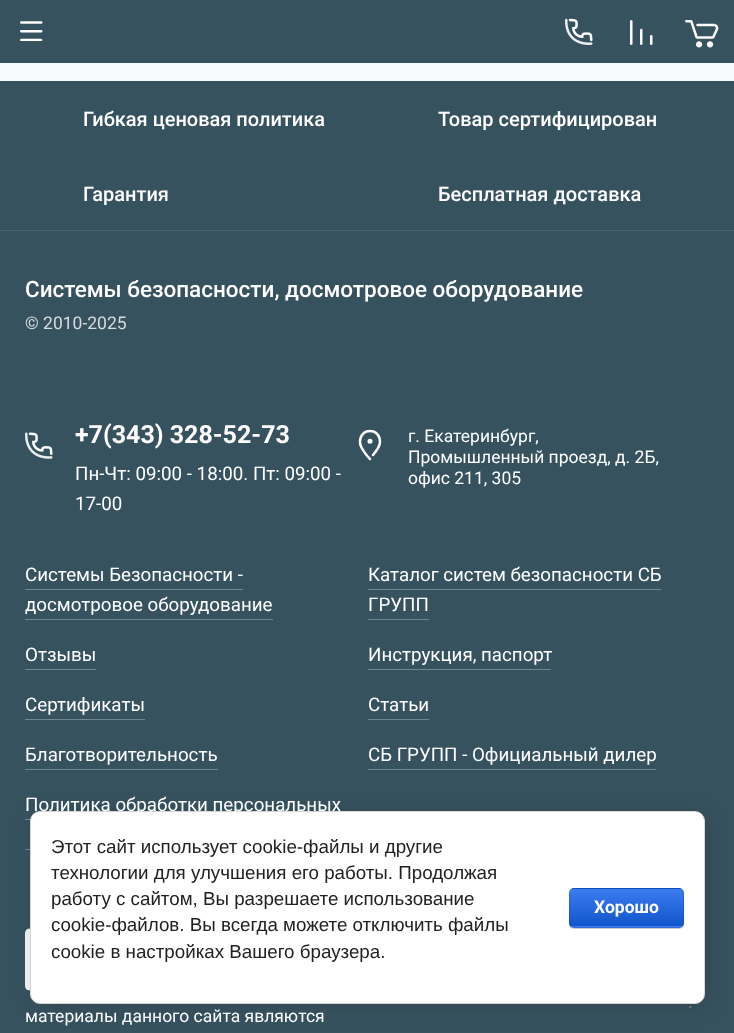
<?xml version="1.0" encoding="UTF-8"?>
<svg xmlns="http://www.w3.org/2000/svg" xmlns:xlink="http://www.w3.org/1999/xlink" width="734" height="1033">
  <defs>
    <clipPath id="clip1"><rect x="569" y="888" width="115" height="40" rx="5" /></clipPath>
    <linearGradient id="g1" gradientUnits="userSpaceOnUse" x1="626" y1="851" x2="626" y2="889"><stop offset="0" stop-color="#3b7cef" /><stop offset="1" stop-color="#1155cc" /></linearGradient>
    <linearGradient id="g2" gradientUnits="userSpaceOnUse" x1="626" y1="889" x2="626" y2="926"><stop offset="0" stop-color="#3b7cef" /><stop offset="1" stop-color="#1155cc" /></linearGradient>
    <linearGradient id="g3" gradientUnits="userSpaceOnUse" x1="626" y1="926" x2="626" y2="964"><stop offset="0" stop-color="#3b7cef" /><stop offset="1" stop-color="#1155cc" /></linearGradient>
  </defs>
  <rect width="100%" height="100%" fill="#f6fafc" />
  <rect width="734" height="63" fill="#37525f" />
  <image x="20" y="21" width="23" height="20" xlink:href="image1.png" />
  <image x="565" y="18" width="28" height="27" xlink:href="image2.png" />
  <image x="630" y="20" width="23" height="25" xlink:href="image3.png" />
  <image x="685" y="20" width="34" height="28" xlink:href="image4.png" />
  <rect y="81" width="734" height="149" fill="#37525f" />
  <rect y="230" width="734" height="1" fill="#4b636f" />
  <rect y="231" width="734" height="802" fill="#37525f" />
  <image x="25" y="432" width="28" height="27" xlink:href="image5.png" />
  <path d="M 370 459 c 0 0 -10 -10 -10 -17 c 0 -7 4.5 -11 10 -11 c 5.5 0 10 4 10 11 c 0 4.5 -4 9.5 -7 13" fill="none" stroke="#ffffff" stroke-width="2.5" stroke-linecap="round" />
  <circle cx="370" cy="441.2" r="2.5" fill="#ffffff" />
  <rect x="25" y="589" width="218" height="1" fill="#73868f" />
  <rect x="25" y="619" width="248" height="1" fill="#73868f" />
  <rect x="368" y="589" width="293" height="1" fill="#73868f" />
  <rect x="368" y="619" width="61" height="1" fill="#73868f" />
  <rect x="25" y="669" width="71" height="1" fill="#73868f" />
  <rect x="368" y="669" width="183" height="1" fill="#73868f" />
  <rect x="25" y="719" width="120" height="1" fill="#73868f" />
  <rect x="368" y="719" width="61" height="1" fill="#73868f" />
  <rect x="25" y="769" width="193" height="1" fill="#73868f" />
  <rect x="368" y="769" width="288" height="1" fill="#73868f" />
  <rect x="25" y="819" width="6" height="1" fill="#73868f" />
  <rect x="25" y="849" width="5" height="1" fill="#73868f" />
  <image x="25" y="928" width="5" height="63" xlink:href="image6.png" />
  <rect x="33" y="814" width="675" height="192" rx="10" fill="#000000" fill-opacity="0.14" filter="blur(11px)" />
  <rect x="30.5" y="811.5" width="674" height="192" rx="9.5" fill="#ffffff" stroke="#d6d6d6" />
  <rect x="569" y="889" width="115" height="40" rx="5" fill="#000000" fill-opacity="0.2" filter="blur(0.5px)" />
  <g clip-path="url(#clip1)">
    <rect x="569" y="888" width="115" height="1" fill="url(#g1)" />
    <rect x="569" y="889" width="115" height="37" fill="url(#g2)" />
    <rect x="569" y="926" width="115" height="2" fill="url(#g3)" />
  </g>
  <rect x="569.5" y="888.5" width="114" height="39" rx="4.5" fill="none" stroke="#000000" stroke-opacity="0.1" />
  <text x="83" y="126" style="font-family: Roboto; font-size: 20px; font-weight: 500; fill: #ffffff">Гибкая ценовая политика</text>
  <text x="438" y="126" style="font-family: Roboto; font-size: 20px; font-weight: 500; fill: #ffffff">Товар сертифицирован</text>
  <text x="83" y="201" style="font-family: Roboto; font-size: 20px; font-weight: 500; fill: #ffffff">Гарантия</text>
  <text x="438" y="201" style="font-family: Roboto; font-size: 20px; font-weight: 500; fill: #ffffff">Бесплатная доставка</text>
  <text x="25" y="297" style="font-family: Roboto; font-size: 22.5px; font-weight: 500; fill: #ffffff">Системы безопасности, досмотровое оборудование</text>
  <text x="25" y="329" style="font-family: Roboto; font-size: 17.5px; fill: #d7dcdf">© 2010-2025</text>
  <text x="75" y="443" style="font-family: Roboto; font-size: 25px; font-weight: bold; fill: #ffffff">+7(343) 328-52-73</text>
  <text x="75" y="480" style="font-family: Roboto; font-size: 18.75px; fill: #ffffff">Пн-Чт: 09:00 - 18:00. Пт: 09:00 -</text>
  <text x="75" y="510" style="font-family: Roboto; font-size: 18.75px; fill: #ffffff">17-00</text>
  <text x="408" y="442" style="font-family: Roboto; font-size: 17.5px; fill: #ffffff">г. Екатеринбург,</text>
  <text x="408" y="463" style="font-family: Roboto; font-size: 17.5px; fill: #ffffff">Промышленный проезд, д. 2Б,</text>
  <text x="408" y="484" style="font-family: Roboto; font-size: 17.5px; fill: #ffffff">офис 211, 305</text>
  <text x="25" y="581" style="font-family: Roboto; font-size: 18.75px; fill: #ffffff">Системы Безопасности -</text>
  <text x="25" y="611" style="font-family: Roboto; font-size: 18.75px; fill: #ffffff">досмотровое оборудование</text>
  <text x="368" y="581" style="font-family: Roboto; font-size: 18.75px; fill: #ffffff">Каталог систем безопасности СБ</text>
  <text x="368" y="611" style="font-family: Roboto; font-size: 18.75px; fill: #ffffff">ГРУПП</text>
  <text x="25" y="661" style="font-family: Roboto; font-size: 18.75px; fill: #ffffff">Отзывы</text>
  <text x="368" y="661" style="font-family: Roboto; font-size: 18.75px; fill: #ffffff">Инструкция, паспорт</text>
  <text x="25" y="711" style="font-family: Roboto; font-size: 18.75px; fill: #ffffff">Сертификаты</text>
  <text x="368" y="711" style="font-family: Roboto; font-size: 18.75px; fill: #ffffff">Статьи</text>
  <text x="25" y="761" style="font-family: Roboto; font-size: 18.75px; fill: #ffffff">Благотворительность</text>
  <text x="368" y="761" style="font-family: Roboto; font-size: 18.75px; fill: #ffffff">СБ ГРУПП - Официальный дилер</text>
  <text x="25" y="811" style="font-family: Roboto; font-size: 18.75px; fill: #ffffff">Политика обработки персональных</text>
  <text x="688" y="1008" style="font-family: Roboto; font-size: 18.75px; fill: #808080">.</text>
  <text x="25" y="1022" style="font-family: Roboto; font-size: 17.5px; fill: #ffffff">материалы данного сайта являются</text>
  <text x="51" y="853" style="font-family: Liberation Sans; font-size: 18.75px; fill: #212121">Этот сайт использует cookie-файлы и другие</text>
  <text x="51" y="879" style="font-family: Liberation Sans; font-size: 18.75px; fill: #212121">технологии для улучшения его работы. Продолжая</text>
  <text x="51" y="905" style="font-family: Liberation Sans; font-size: 18.75px; fill: #212121">работу с сайтом, Вы разрешаете использование</text>
  <text x="51" y="931" style="font-family: Liberation Sans; font-size: 18.75px; fill: #212121">cookie-файлов. Вы всегда можете отключить файлы</text>
  <text x="51" y="958" style="font-family: Liberation Sans; font-size: 18.75px; fill: #212121">cookie в настройках Вашего браузера.</text>
  <text x="594" y="913" style="font-family: Roboto; font-size: 17.5px; font-weight: bold; fill: #ffffff">Хорошо</text>
</svg>
